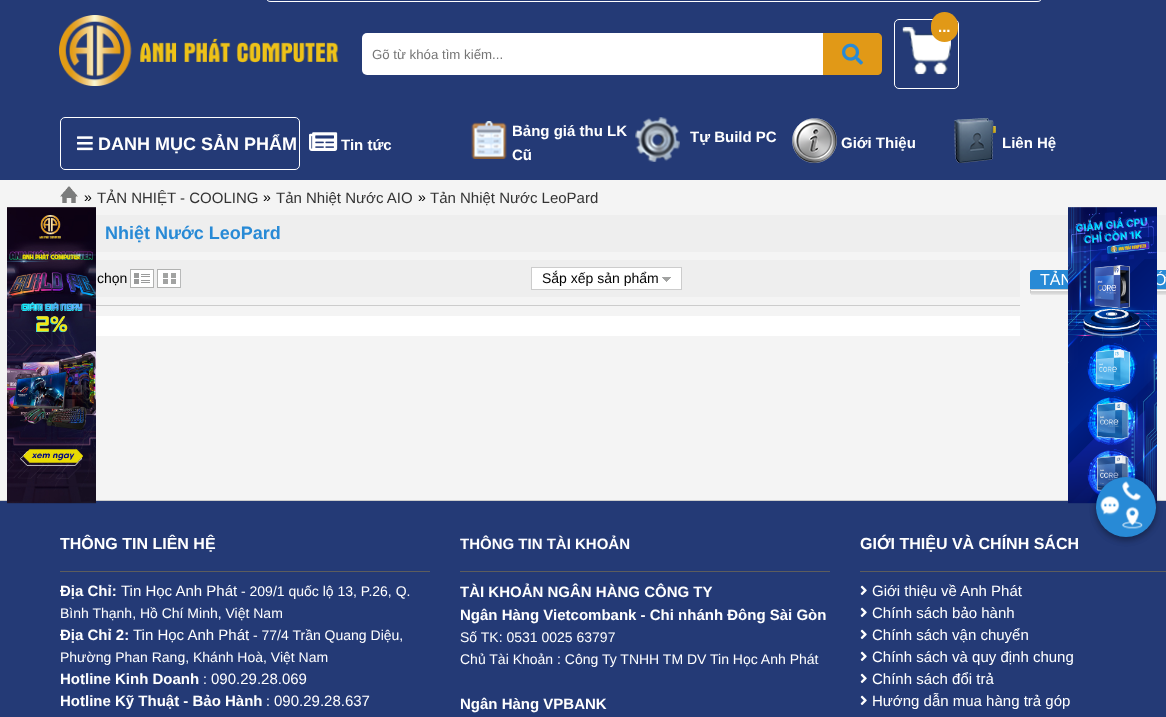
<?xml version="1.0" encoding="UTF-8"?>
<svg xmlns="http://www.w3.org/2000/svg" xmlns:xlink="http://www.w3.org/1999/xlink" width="1166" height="717">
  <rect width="100%" height="100%" fill="#f4f4f4" />
  <rect width="1166" height="180" fill="#243a76" />
  <rect x="266.5" y="-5.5" width="775" height="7" rx="4.5" fill="none" stroke="#ffffff" />
  <image x="59" y="15" width="280" height="71" xlink:href="image1.png" />
  <rect x="894.5" y="19.5" width="64" height="69" rx="4.5" fill="none" stroke="#ffffff" />
  <image x="902" y="27" width="49" height="48" xlink:href="image2.png" />
  <rect x="931" y="12" width="27" height="30" rx="13.5" fill="#e19917" />
  <rect x="362" y="33" width="512" height="42" rx="5" fill="#ffffff" />
  <path d="M 823 33 h 54 c 3 0 5 2 5 5 v 32 c 0 3 -2 5 -5 5 h -54 z" fill="#e19917" />
  <image x="842" y="43" width="21" height="22" xlink:href="image3.png" />
  <rect x="60.5" y="117.5" width="239" height="52" rx="4.5" fill="none" stroke="#ffffff" />
  <image x="77" y="136" width="16" height="15" xlink:href="image4.png" />
  <image x="309" y="132" width="29" height="19" xlink:href="image5.png" />
  <image x="471" y="121" width="36" height="38" xlink:href="image6.png" />
  <image x="635" y="117" width="45" height="45" xlink:href="image7.png" />
  <image x="792" y="118" width="45" height="45" xlink:href="image8.png" />
  <image x="954" y="118" width="42" height="45" xlink:href="image9.png" />
  <image x="60" y="186" width="18" height="17" xlink:href="image10.png" />
  <rect x="96" y="215" width="1070" height="37" fill="#eeeeee" />
  <rect x="96" y="260" width="924" height="37" fill="#eeeeee" />
  <image x="130" y="269" width="24" height="19" xlink:href="image11.png" />
  <image x="157" y="269" width="24" height="19" xlink:href="image12.png" />
  <rect x="531.5" y="267.5" width="150" height="22" fill="#ffffff" stroke="#cccccc" />
  <image x="662" y="277" width="9" height="5" xlink:href="image13.png" />
  <rect x="96" y="305" width="924" height="1" fill="#cccccc" />
  <rect x="96" y="316" width="924" height="20" fill="#ffffff" />
  <path d="M 1033 270 h 133 c 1.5 0 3 1.5 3 3 v 16 h -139 v -16 c 0 -1.5 1.5 -3 3 -3 z" fill="#288ad6" />
  <path d="M 1030.5 289.5 h 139 v 2.5 c 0 1.5 -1 2.5 -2.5 2.5 h -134 c -1.5 0 -2.5 -1 -2.5 -2.5 z" fill="none" stroke="#cccccc" />
  <image x="1031" y="290" width="135" height="5" xlink:href="image14.png" />
  <rect y="501" width="1166" height="216" fill="#243a76" />
  <rect y="500" width="1166" height="1" fill="#cccccc" />
  <image x="7" y="207" width="89" height="297" xlink:href="image15.png" />
  <rect x="60" y="571" width="370" height="1" fill="#5d5d5d" />
  <rect x="460" y="571" width="370" height="1" fill="#5d5d5d" />
  <rect x="860" y="571" width="306" height="1" fill="#5d5d5d" />
  <image x="860" y="585" width="7" height="10" xlink:href="image17.png" />
  <image x="860" y="607" width="7" height="10" xlink:href="image17.png" />
  <image x="860" y="629" width="7" height="10" xlink:href="image17.png" />
  <image x="860" y="651" width="7" height="10" xlink:href="image17.png" />
  <image x="860" y="673" width="7" height="10" xlink:href="image17.png" />
  <image x="860" y="695" width="7" height="10" xlink:href="image17.png" />
  <text x="938" y="32" style="font-family: Liberation Sans; font-size: 15px; font-weight: bold; fill: #ffffff">...</text>
  <text x="372" y="59" style="font-family: Liberation Sans; font-size: 13.25px; fill: #757575">Gõ từ khóa tìm kiếm...</text>
  <text x="98" y="150" style="font-family: Liberation Sans; font-size: 18px; font-weight: bold; fill: #ffffff">DANH MỤC SẢN PHẨM</text>
  <text x="341" y="150" style="font-family: Liberation Sans; font-size: 15px; font-weight: bold; fill: #ffffff">Tin tức</text>
  <text x="512" y="136" style="font-family: Liberation Sans; font-size: 15px; font-weight: bold; fill: #ffffff">Bảng giá thu LK</text>
  <text x="512" y="160" style="font-family: Liberation Sans; font-size: 15px; font-weight: bold; fill: #ffffff">Cũ</text>
  <text x="690" y="142" style="font-family: Liberation Sans; font-size: 15px; font-weight: bold; fill: #ffffff">Tự Build PC</text>
  <text x="841" y="148" style="font-family: Liberation Sans; font-size: 15px; font-weight: bold; fill: #ffffff">Giới Thiệu</text>
  <text x="1002" y="148" style="font-family: Liberation Sans; font-size: 15px; font-weight: bold; fill: #ffffff">Liên Hệ</text>
  <text x="84" y="202" style="font-family: Liberation Sans; font-size: 14px; fill: #000000">»</text>
  <text x="97" y="203" style="font-family: Liberation Sans; font-size: 15px; fill: #333333">TẢN NHIỆT - COOLING</text>
  <text x="263" y="202" style="font-family: Liberation Sans; font-size: 14px; fill: #000000">»</text>
  <text x="276" y="203" style="font-family: Liberation Sans; font-size: 15px; fill: #333333">Tản Nhiệt Nước AIO</text>
  <text x="418" y="202" style="font-family: Liberation Sans; font-size: 14px; fill: #000000">»</text>
  <text x="430" y="203" style="font-family: Liberation Sans; font-size: 15px; fill: #333333">Tản Nhiệt Nước LeoPard</text>
  <text x="105" y="239" style="font-family: Liberation Sans; font-size: 18px; font-weight: bold; fill: #288ad6">Nhiệt Nước LeoPard</text>
  <text x="97" y="283" style="font-family: Liberation Sans; font-size: 14px; fill: #000000">chọn</text>
  <text x="542" y="283" style="font-family: Liberation Sans; font-size: 14px; fill: #000000">Sắp xếp sản phẩm</text>
  <text x="1040" y="285" style="font-family: Liberation Sans; font-size: 16px; fill: #ffffff">TẢN</text>
  <text x="1154" y="285" style="font-family: Liberation Sans; font-size: 16px; fill: #ffffff">Ớ</text>
  <image x="1068" y="207" width="89" height="297" xlink:href="image16.png" />
  <text x="60" y="549" style="font-family: Liberation Sans; font-size: 16px; font-weight: bold; fill: #ffffff">THÔNG TIN LIÊN HỆ</text>
  <text x="60" y="596" style="font-family: Liberation Sans; font-size: 15px; font-weight: bold; fill: #ffffff">Địa Chỉ:</text>
  <text x="121" y="596" style="font-family: Liberation Sans; font-size: 15px; fill: #ffffff">Tin Học Anh Phát</text>
  <text x="241" y="596" style="font-family: Liberation Sans; font-size: 14px; fill: #ffffff">- 209/1 quốc lộ 13, P.26, Q.</text>
  <text x="60" y="618" style="font-family: Liberation Sans; font-size: 14px; fill: #ffffff">Bình Thạnh, Hồ Chí Minh, Việt Nam</text>
  <text x="60" y="640" style="font-family: Liberation Sans; font-size: 15px; font-weight: bold; fill: #ffffff">Địa Chỉ 2:</text>
  <text x="133" y="640" style="font-family: Liberation Sans; font-size: 15px; fill: #ffffff">Tin Học Anh Phát</text>
  <text x="253" y="640" style="font-family: Liberation Sans; font-size: 14px; fill: #ffffff">- 77/4 Trần Quang Diệu,</text>
  <text x="60" y="662" style="font-family: Liberation Sans; font-size: 14px; fill: #ffffff">Phường Phan Rang, Khánh Hoà, Việt Nam</text>
  <text x="60" y="684" style="font-family: Liberation Sans; font-size: 15px; font-weight: bold; fill: #ffffff">Hotline Kinh Doanh</text>
  <text x="203" y="684" style="font-family: Liberation Sans; font-size: 14px; fill: #ffffff">:</text>
  <text x="211" y="684" style="font-family: Liberation Sans; font-size: 15px; fill: #ffffff">090.29.28.069</text>
  <text x="60" y="706" style="font-family: Liberation Sans; font-size: 15px; font-weight: bold; fill: #ffffff">Hotline Kỹ Thuật - Bảo Hành</text>
  <text x="266" y="706" style="font-family: Liberation Sans; font-size: 14px; fill: #ffffff">:</text>
  <text x="274" y="706" style="font-family: Liberation Sans; font-size: 15px; fill: #ffffff">090.29.28.637</text>
  <text x="460" y="549" style="font-family: Liberation Sans; font-size: 15px; font-weight: bold; fill: #ffffff">THÔNG TIN TÀI KHOẢN</text>
  <text x="460" y="597" style="font-family: Liberation Sans; font-size: 15px; font-weight: bold; fill: #ffffff">TÀI KHOẢN NGÂN HÀNG CÔNG TY</text>
  <text x="460" y="620" style="font-family: Liberation Sans; font-size: 15px; font-weight: bold; fill: #ffffff">Ngân Hàng Vietcombank - Chi nhánh Đông Sài Gòn</text>
  <text x="460" y="642" style="font-family: Liberation Sans; font-size: 14px; fill: #ffffff">Số TK: 0531 0025 63797</text>
  <text x="460" y="664" style="font-family: Liberation Sans; font-size: 14px; fill: #ffffff">Chủ Tài Khoản : Công Ty TNHH TM DV Tin Học Anh Phát</text>
  <text x="460" y="709" style="font-family: Liberation Sans; font-size: 15px; font-weight: bold; fill: #ffffff">Ngân Hàng VPBANK</text>
  <text x="860" y="549" style="font-family: Liberation Sans; font-size: 16px; font-weight: bold; fill: #ffffff">GIỚI THIỆU VÀ CHÍNH SÁCH</text>
  <text x="872" y="596" style="font-family: Liberation Sans; font-size: 15px; fill: #ffffff">Giới thiệu về Anh Phát</text>
  <text x="872" y="618" style="font-family: Liberation Sans; font-size: 15px; fill: #ffffff">Chính sách bảo hành</text>
  <text x="872" y="640" style="font-family: Liberation Sans; font-size: 15px; fill: #ffffff">Chính sách vận chuyển</text>
  <text x="872" y="662" style="font-family: Liberation Sans; font-size: 15px; fill: #ffffff">Chính sách và quy định chung</text>
  <text x="872" y="684" style="font-family: Liberation Sans; font-size: 15px; fill: #ffffff">Chính sách đổi trả</text>
  <text x="872" y="706" style="font-family: Liberation Sans; font-size: 15px; fill: #ffffff">Hướng dẫn mua hàng trả góp</text>
  <rect x="1096" y="480" width="60" height="60" rx="30" fill="#000000" fill-opacity="0.23" filter="blur(3px)" />
  <rect x="1096" y="480" width="60" height="60" rx="30" fill="#000000" fill-opacity="0.16" filter="blur(3px)" />
  <circle cx="1126" cy="507" r="30" fill="#288ad6" />
  <image x="1100" y="481" width="43" height="48" xlink:href="image18.png" />
</svg>
